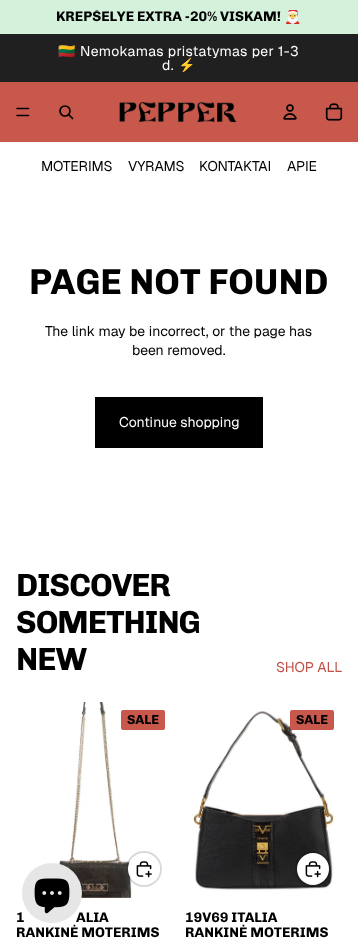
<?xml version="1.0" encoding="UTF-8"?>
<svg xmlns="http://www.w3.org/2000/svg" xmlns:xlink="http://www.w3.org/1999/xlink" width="358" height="944">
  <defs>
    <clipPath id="clip1"><rect x="44" y="10" width="270" height="14" /></clipPath>
    <clipPath id="clip2"><rect x="44" y="44" width="270" height="28" /></clipPath>
  </defs>
  <rect width="100%" height="100%" fill="#ffffff" />
  <rect width="358" height="34" fill="#d4f1db" />
  <rect y="34" width="358" height="48" fill="#202020" />
  <rect y="82" width="358" height="60" fill="#c9584c" />
  <path d="M 17 108.5 h 11.5 m -11.5 7 h 11.5" fill="none" stroke="#000000" stroke-width="1.5" stroke-linecap="round" />
  <circle cx="65" cy="111" r="5" fill="none" stroke="#000000" stroke-width="1.7" />
  <path d="M 69 115 l 3.5 3.5" fill="none" stroke="#000000" stroke-width="1.7" stroke-linecap="round" stroke-linejoin="round" />
  <image x="119" y="102" width="118" height="21" xlink:href="image1.png" />
  <image x="283" y="104" width="14" height="16" xlink:href="image2.png" />
  <image x="325" y="103" width="18" height="18" xlink:href="image3.png" />
  <rect x="95" y="397" width="168" height="51" fill="#000000" />
  <image x="57" y="702" width="75" height="196" xlink:href="image4.png" />
  <rect x="121" y="710" width="44" height="20" rx="2" fill="#c9584c" />
  <circle cx="144" cy="869" r="17" fill="none" stroke="#000000" stroke-opacity="0.15" stroke-width="2" />
  <circle cx="144" cy="869" r="16" fill="#ffffff" />
  <image x="136" y="861" width="16" height="17" xlink:href="image5.png" />
  <image x="192" y="711" width="142" height="179" xlink:href="image6.png" />
  <rect x="290" y="710" width="44" height="20" rx="2" fill="#c9584c" />
  <circle cx="313" cy="869" r="17" fill="none" stroke="#000000" stroke-opacity="0.15" stroke-width="2" />
  <circle cx="313" cy="869" r="16" fill="#ffffff" />
  <image x="305" y="861" width="16" height="17" xlink:href="image5.png" />
  <g clip-path="url(#clip1)">
    <text x="56" y="21" style="font-family: Chivo; font-size: 14px; font-weight: bold; fill: #000000">KREPŠELYE EXTRA -20% VISKAM!</text>
    <text x="284" y="21" style="font-family: Noto Color Emoji; font-size: 14px; fill: #000000">🎅</text>
  </g>
  <g clip-path="url(#clip2)">
    <text x="58" y="56" style="font-family: Noto Color Emoji; font-size: 14px; letter-spacing: 0.4px; fill: #ffffff">🇱🇹</text>
  </g>
  <text x="80" y="56" style="font-family: Geist; font-size: 14px; letter-spacing: 0.4px; fill: #ffffff">Nemokamas pristatymas per 1-3</text>
  <text x="162" y="70" style="font-family: Geist; font-size: 14px; letter-spacing: 0.4px; fill: #ffffff">d.</text>
  <g clip-path="url(#clip2)">
    <text x="178" y="70" style="font-family: Noto Color Emoji; font-size: 14px; letter-spacing: 0.4px; fill: #ffffff">⚡</text>
  </g>
  <text x="41" y="171" style="font-family: Geist; font-size: 14px; fill: #000000">MOTERIMS</text>
  <text x="128" y="171" style="font-family: Geist; font-size: 14px; fill: #000000">VYRAMS</text>
  <text x="199" y="171" style="font-family: Geist; font-size: 14px; fill: #000000">KONTAKTAI</text>
  <text x="287" y="171" style="font-family: Geist; font-size: 14px; fill: #000000">APIE</text>
  <text x="29" y="294" style="font-family: Chivo; font-size: 36px; font-weight: bold; fill: #000000">PAGE NOT FOUND</text>
  <text x="45" y="336" style="font-family: Geist; font-size: 14px; fill: #000000">The link may be incorrect, or the page has</text>
  <text x="132" y="355" style="font-family: Geist; font-size: 14px; fill: #000000">been removed.</text>
  <text x="119" y="427" style="font-family: Geist; font-size: 14px; fill: #ffffff">Continue shopping</text>
  <text x="16" y="596" style="font-family: Chivo; font-size: 32px; font-weight: bold; letter-spacing: -1px; fill: #000000">DISCOVER</text>
  <text x="16" y="633" style="font-family: Chivo; font-size: 32px; font-weight: bold; letter-spacing: -1px; fill: #000000">SOMETHING</text>
  <text x="16" y="670" style="font-family: Chivo; font-size: 32px; font-weight: bold; letter-spacing: -1px; fill: #000000">NEW</text>
  <text x="276" y="672" style="font-family: Geist; font-size: 14px; fill: #c15045">SHOP ALL</text>
  <text x="127" y="724" style="font-family: Chivo; font-size: 13px; font-weight: bold; fill: #000000">SALE</text>
  <text x="16" y="922" style="font-family: Chivo; font-size: 14px; font-weight: bold; fill: #000000">1</text>
  <text x="76" y="922" style="font-family: Chivo; font-size: 14px; font-weight: bold; fill: #000000">ALIA</text>
  <text x="16" y="937" style="font-family: Chivo; font-size: 14px; font-weight: bold; fill: #000000">RANKINĖ MOTERIMS</text>
  <text x="296" y="724" style="font-family: Chivo; font-size: 13px; font-weight: bold; fill: #000000">SALE</text>
  <text x="185" y="922" style="font-family: Chivo; font-size: 14px; font-weight: bold; fill: #000000">19V69 ITALIA</text>
  <text x="185" y="937" style="font-family: Chivo; font-size: 14px; font-weight: bold; fill: #000000">RANKINĖ MOTERIMS</text>
  <circle cx="52" cy="893" r="30" fill="#e6e6e6" />
  <image x="34" y="878" width="36" height="36" xlink:href="image7.png" />
</svg>
